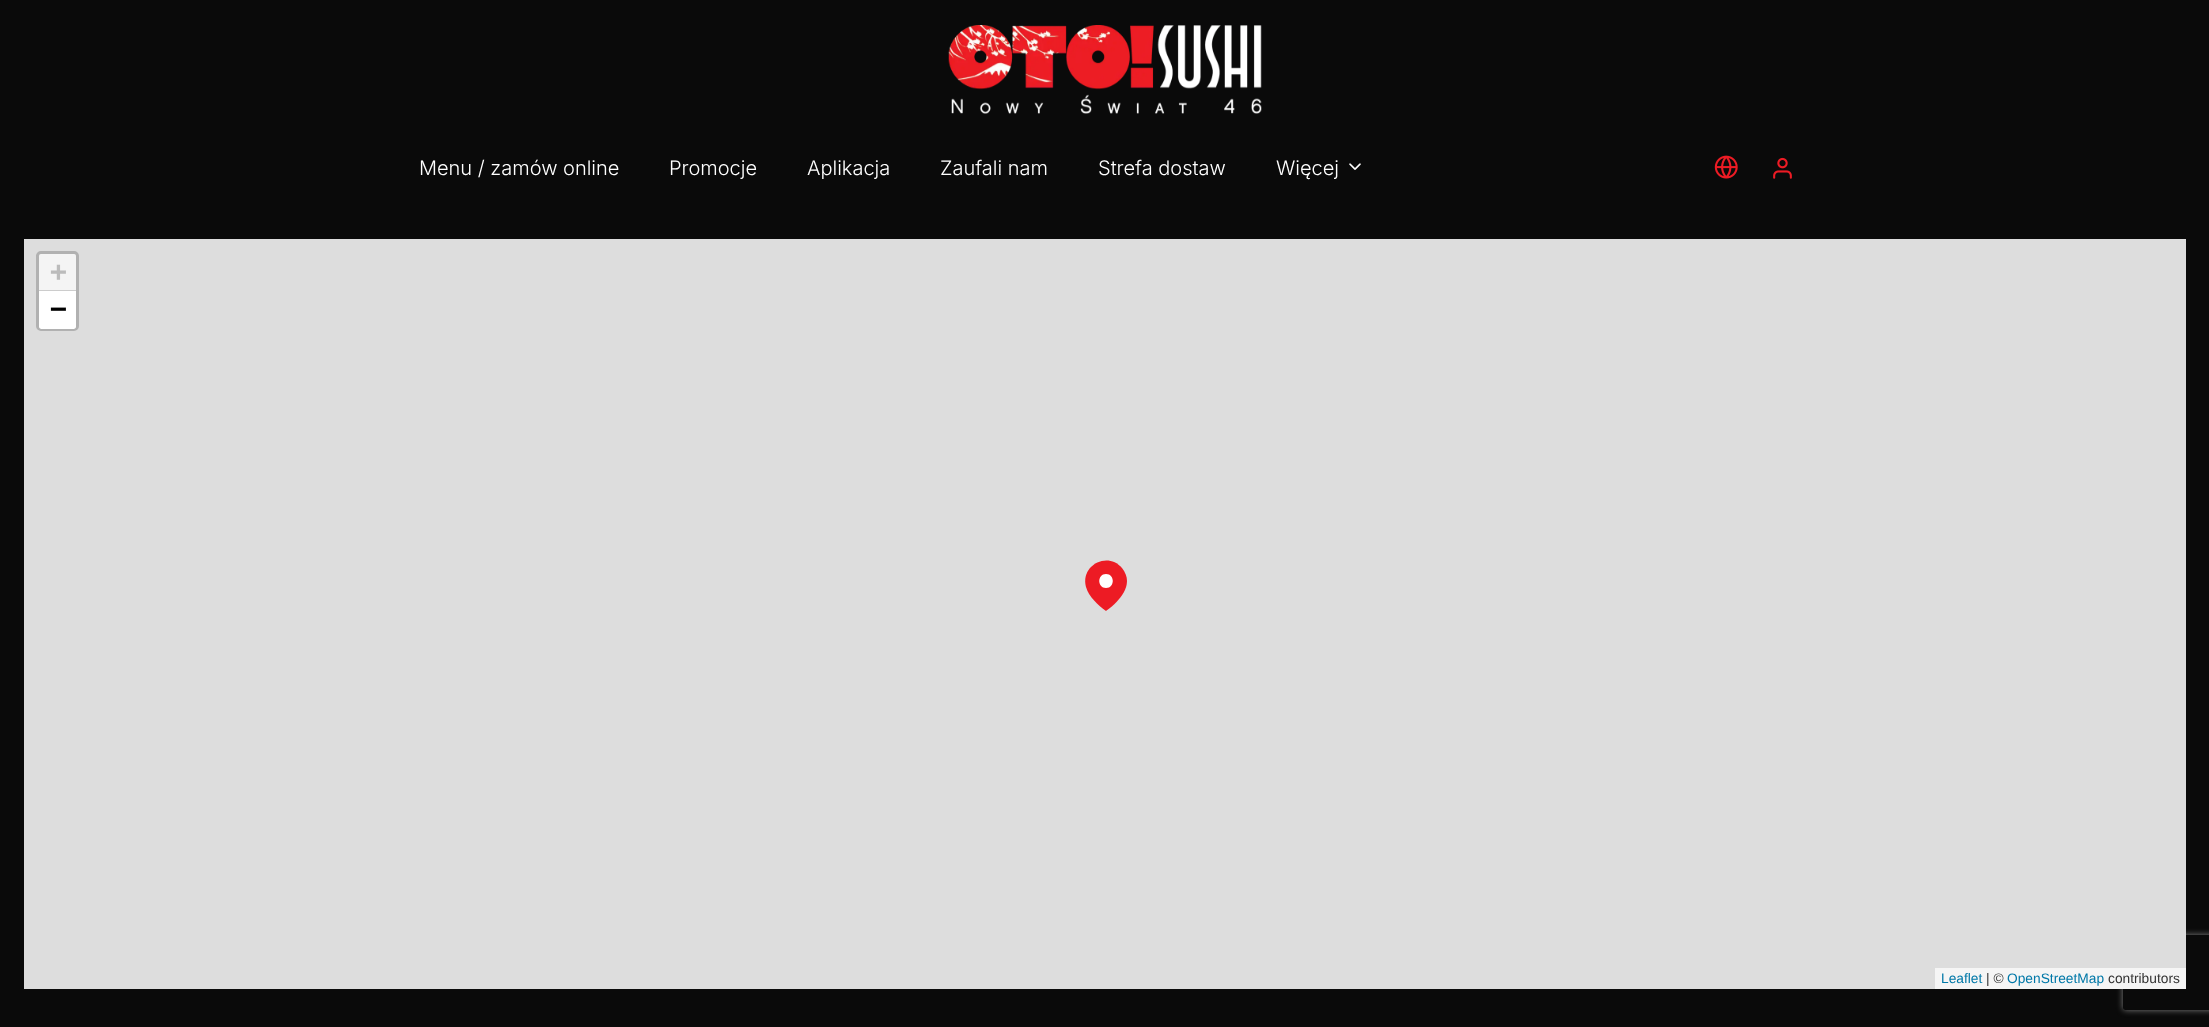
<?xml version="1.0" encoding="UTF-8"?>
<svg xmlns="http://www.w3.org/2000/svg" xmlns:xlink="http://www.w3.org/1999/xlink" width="2209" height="1027">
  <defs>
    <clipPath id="clip1"><path d="M 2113 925 h 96 v 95 h -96 z m 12.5 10 h 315 c 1.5 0 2.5 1 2.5 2.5 v 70 c 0 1.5 -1 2.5 -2.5 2.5 h -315 c -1.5 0 -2.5 -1 -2.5 -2.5 v -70 c 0 -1.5 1 -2.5 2.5 -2.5 z" clip-rule="evenodd" /></clipPath>
  </defs>
  <rect width="100%" height="100%" fill="#0a0a0a" />
  <image x="948" y="25" width="314" height="89" xlink:href="image1.png" />
  <image x="1349" y="163" width="12" height="7" xlink:href="image2.png" />
  <image x="1714" y="155" width="24" height="24" xlink:href="image3.png" />
  <image x="1773" y="157" width="19" height="22" xlink:href="image4.png" />
  <g clip-path="url(#clip1)">
    <rect x="2123" y="935" width="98" height="75" rx="2.5" fill="#808080" filter="blur(3px)" />
  </g>
  <rect x="24" y="239" width="2162" height="750" fill="#dddddd" />
  <rect x="37.5" y="252.5" width="40" height="77" rx="3.5" fill="none" stroke="#b1b1b1" stroke-width="3" />
  <path d="M 41.5 254 h 32 c 1.5 0 2.5 1 2.5 2.5 v 34.5 h -37 v -34.5 c 0 -1.5 1 -2.5 2.5 -2.5 z" fill="#f4f4f4" />
  <rect x="39" y="290" width="37" height="1" fill="#cccccc" />
  <path d="M 39 291 h 37 v 35.5 c 0 1.5 -1 2.5 -2.5 2.5 h -32 c -1.5 0 -2.5 -1 -2.5 -2.5 z" fill="#ffffff" />
  <rect x="1935" y="968" width="251" height="21" fill="#f5f5f5" />
  <path d="M 1127 581 c 0 16 -21 30 -21 30 c -8 -6 -17 -14 -20 -24 c -6 -22 22 -36 36 -19 c 3 4 5 8 5 13 z" fill="#ed1b24" />
  <path d="M 1106 588 c 9 0 9 -14 0 -14 c -9 0 -9 14 0 14 z" fill="#ffffff" />
  <text x="419" y="175" style="font-family: Inter; font-size: 20px; font-weight: 300; fill: #ffffff">Menu / zamów online</text>
  <text x="669" y="175" style="font-family: Inter; font-size: 20px; font-weight: 300; fill: #ffffff">Promocje</text>
  <text x="807" y="175" style="font-family: Inter; font-size: 20px; font-weight: 300; fill: #ffffff">Aplikacja</text>
  <text x="940" y="175" style="font-family: Inter; font-size: 20px; font-weight: 300; fill: #ffffff">Zaufali nam</text>
  <text x="1098" y="175" style="font-family: Inter; font-size: 20px; font-weight: 300; fill: #ffffff">Strefa dostaw</text>
  <text x="1276" y="175" style="font-family: Inter; font-size: 20px; font-weight: 300; fill: #ffffff">Więcej</text>
  <text x="50" y="281" style="font-family: DejaVu Sans Mono; font-size: 28px; font-weight: bold; fill: #bbbbbb">+</text>
  <text x="50" y="318" style="font-family: DejaVu Sans Mono; font-size: 28px; font-weight: bold; fill: #000000">−</text>
  <text x="1941" y="983" style="font-family: Liberation Sans; font-size: 13.75px; fill: #0078a8">Leaflet</text>
  <text x="1986" y="983" style="font-family: Liberation Sans; font-size: 13.75px; fill: #333333">| ©</text>
  <text x="2007" y="983" style="font-family: Liberation Sans; font-size: 13.75px; fill: #0078a8">OpenStreetMap</text>
  <text x="2108" y="983" style="font-family: Liberation Sans; font-size: 13.75px; fill: #333333">contributors</text>
</svg>
